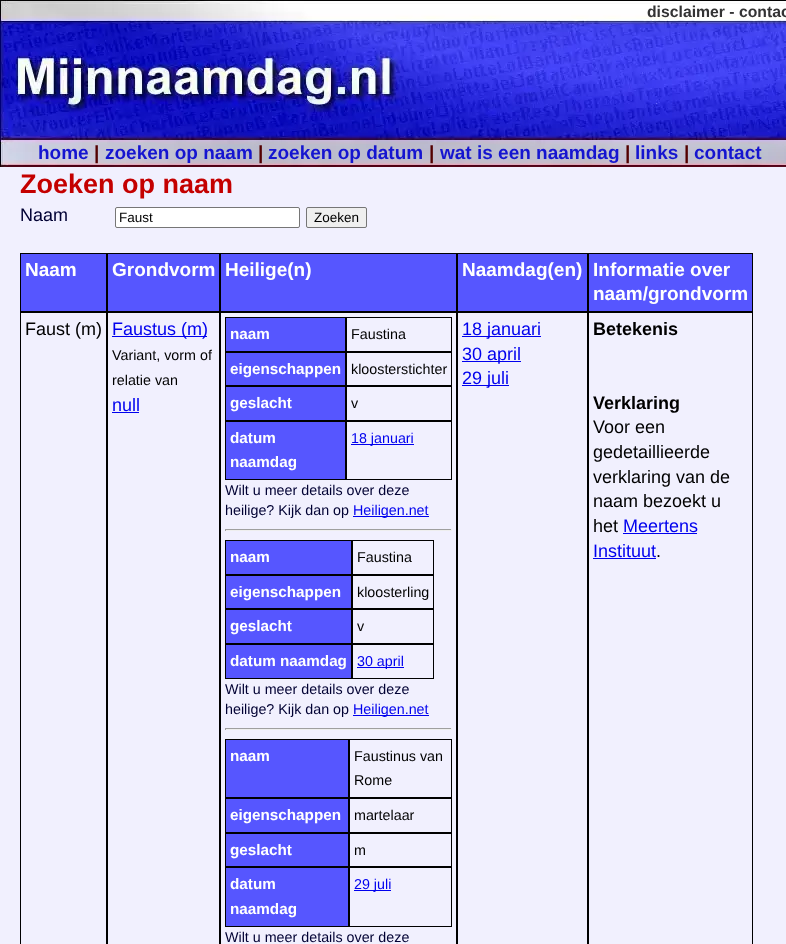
<?xml version="1.0" encoding="UTF-8"?>
<svg xmlns="http://www.w3.org/2000/svg" xmlns:xlink="http://www.w3.org/1999/xlink" width="786" height="944">
  <rect width="100%" height="100%" fill="#f1f0fe" />
  <image x="0" y="0" width="786" height="167" xlink:href="image1.png" />
  <rect x="115.5" y="207.5" width="184" height="20" rx="1.5" fill="#ffffff" stroke="#767676" />
  <rect x="306.5" y="207.5" width="60" height="20" rx="1.5" fill="#efefef" stroke="#767676" />
  <rect x="20.5" y="253.5" width="86" height="58" fill="#5656ff" stroke="#000000" />
  <rect x="107.5" y="253.5" width="112" height="58" fill="#5656ff" stroke="#000000" />
  <rect x="220.5" y="253.5" width="236" height="58" fill="#5656ff" stroke="#000000" />
  <rect x="457.5" y="253.5" width="130" height="58" fill="#5656ff" stroke="#000000" />
  <rect x="588.5" y="253.5" width="164" height="58" fill="#5656ff" stroke="#000000" />
  <rect x="20.5" y="312.5" width="86" height="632" fill="none" stroke="#000000" />
  <rect x="107.5" y="312.5" width="112" height="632" fill="none" stroke="#000000" />
  <rect x="112" y="336" width="95" height="1" fill="#0000ee" />
  <rect x="112" y="412" width="27" height="1" fill="#0000ee" />
  <rect x="220.5" y="312.5" width="236" height="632" fill="none" stroke="#000000" />
  <rect x="225.5" y="317.5" width="120" height="34" fill="#5656ff" stroke="#000000" />
  <rect x="346.5" y="317.5" width="105" height="34" fill="none" stroke="#000000" />
  <rect x="225.5" y="352.5" width="120" height="33" fill="#5656ff" stroke="#000000" />
  <rect x="346.5" y="352.5" width="105" height="33" fill="none" stroke="#000000" />
  <rect x="225.5" y="386.5" width="120" height="34" fill="#5656ff" stroke="#000000" />
  <rect x="346.5" y="386.5" width="105" height="34" fill="none" stroke="#000000" />
  <rect x="225.5" y="421.5" width="120" height="58" fill="#5656ff" stroke="#000000" />
  <rect x="346.5" y="421.5" width="105" height="58" fill="none" stroke="#000000" />
  <rect x="351" y="444" width="63" height="1" fill="#0000ee" />
  <rect x="353" y="516" width="76" height="1" fill="#0000ee" />
  <rect x="225" y="529" width="227" height="1" fill="#9f9f9f" />
  <rect x="451" y="529" width="1" height="2" fill="#eeeeee" />
  <rect x="225" y="530" width="227" height="1" fill="#eeeeee" />
  <rect x="225" y="529" width="1" height="2" fill="#9f9f9f" />
  <rect x="225.5" y="540.5" width="126" height="34" fill="#5656ff" stroke="#000000" />
  <rect x="352.5" y="540.5" width="81" height="34" fill="none" stroke="#000000" />
  <rect x="225.5" y="575.5" width="126" height="33" fill="#5656ff" stroke="#000000" />
  <rect x="352.5" y="575.5" width="81" height="33" fill="none" stroke="#000000" />
  <rect x="225.5" y="609.5" width="126" height="34" fill="#5656ff" stroke="#000000" />
  <rect x="352.5" y="609.5" width="81" height="34" fill="none" stroke="#000000" />
  <rect x="225.5" y="644.5" width="126" height="34" fill="#5656ff" stroke="#000000" />
  <rect x="352.5" y="644.5" width="81" height="34" fill="none" stroke="#000000" />
  <rect x="357" y="667" width="47" height="1" fill="#0000ee" />
  <rect x="353" y="715" width="76" height="1" fill="#0000ee" />
  <rect x="225" y="728" width="227" height="1" fill="#9f9f9f" />
  <rect x="451" y="728" width="1" height="2" fill="#eeeeee" />
  <rect x="225" y="729" width="227" height="1" fill="#eeeeee" />
  <rect x="225" y="728" width="1" height="2" fill="#9f9f9f" />
  <rect x="225.5" y="739.5" width="123" height="58" fill="#5656ff" stroke="#000000" />
  <rect x="349.5" y="739.5" width="102" height="58" fill="none" stroke="#000000" />
  <rect x="225.5" y="798.5" width="123" height="34" fill="#5656ff" stroke="#000000" />
  <rect x="349.5" y="798.5" width="102" height="34" fill="none" stroke="#000000" />
  <rect x="225.5" y="833.5" width="123" height="33" fill="#5656ff" stroke="#000000" />
  <rect x="349.5" y="833.5" width="102" height="33" fill="none" stroke="#000000" />
  <rect x="225.5" y="867.5" width="123" height="59" fill="#5656ff" stroke="#000000" />
  <rect x="349.5" y="867.5" width="102" height="59" fill="none" stroke="#000000" />
  <rect x="354" y="890" width="37" height="1" fill="#0000ee" />
  <rect x="457.5" y="312.5" width="130" height="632" fill="none" stroke="#000000" />
  <rect x="462" y="336" width="79" height="1" fill="#0000ee" />
  <rect x="462" y="361" width="59" height="1" fill="#0000ee" />
  <rect x="462" y="385" width="47" height="1" fill="#0000ee" />
  <rect x="588.5" y="312.5" width="164" height="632" fill="none" stroke="#000000" />
  <rect x="623" y="533" width="74" height="1" fill="#0000ee" />
  <rect x="593" y="558" width="63" height="1" fill="#0000ee" />
  <text x="647" y="17" style="font-family: Liberation Sans; font-size: 15.75px; font-weight: bold; fill: #333333">disclaimer - contac</text>
  <text x="38" y="159" style="font-family: Liberation Sans; font-size: 19px; font-weight: bold; fill: #1515d0">home</text>
  <text x="94" y="159" style="font-family: Liberation Sans; font-size: 19px; font-weight: bold; fill: #530000">|</text>
  <text x="105" y="159" style="font-family: Liberation Sans; font-size: 19px; font-weight: bold; fill: #1515d0">zoeken op naam</text>
  <text x="258" y="159" style="font-family: Liberation Sans; font-size: 19px; font-weight: bold; fill: #530000">|</text>
  <text x="268" y="159" style="font-family: Liberation Sans; font-size: 19px; font-weight: bold; fill: #1515d0">zoeken op datum</text>
  <text x="429" y="159" style="font-family: Liberation Sans; font-size: 19px; font-weight: bold; fill: #530000">|</text>
  <text x="440" y="159" style="font-family: Liberation Sans; font-size: 19px; font-weight: bold; fill: #1515d0">wat is een naamdag</text>
  <text x="625" y="159" style="font-family: Liberation Sans; font-size: 19px; font-weight: bold; fill: #530000">|</text>
  <text x="635" y="159" style="font-family: Liberation Sans; font-size: 19px; font-weight: bold; fill: #1515d0">links</text>
  <text x="684" y="159" style="font-family: Liberation Sans; font-size: 19px; font-weight: bold; fill: #530000">|</text>
  <text x="694" y="159" style="font-family: Liberation Sans; font-size: 19px; font-weight: bold; fill: #1515d0">contact</text>
  <text x="20" y="193" style="font-family: Liberation Sans; font-size: 27px; font-weight: bold; fill: #c40000">Zoeken op naam</text>
  <text x="20" y="221" style="font-family: Liberation Sans; font-size: 18px; fill: #000033">Naam</text>
  <text x="119" y="222" style="font-family: Liberation Sans; font-size: 13.5px; fill: #000000">Faust</text>
  <text x="314" y="222" style="font-family: Liberation Sans; font-size: 13.5px; fill: #000000">Zoeken</text>
  <text x="25" y="276" style="font-family: Liberation Sans; font-size: 19px; font-weight: bold; fill: #ffffff">Naam</text>
  <text x="112" y="276" style="font-family: Liberation Sans; font-size: 19px; font-weight: bold; fill: #ffffff">Grondvorm</text>
  <text x="225" y="276" style="font-family: Liberation Sans; font-size: 19px; font-weight: bold; fill: #ffffff">Heilige(n)</text>
  <text x="462" y="276" style="font-family: Liberation Sans; font-size: 19px; font-weight: bold; fill: #ffffff">Naamdag(en)</text>
  <text x="593" y="276" style="font-family: Liberation Sans; font-size: 19px; font-weight: bold; fill: #ffffff">Informatie over</text>
  <text x="593" y="300" style="font-family: Liberation Sans; font-size: 19px; font-weight: bold; fill: #ffffff">naam/grondvorm</text>
  <text x="25" y="335" style="font-family: Liberation Sans; font-size: 18px; fill: #000000">Faust (m)</text>
  <text x="112" y="335" style="font-family: Liberation Sans; font-size: 18px; fill: #0000ee">Faustus (m)</text>
  <text x="112" y="360" style="font-family: Liberation Sans; font-size: 14.3px; fill: #000000">Variant, vorm of</text>
  <text x="112" y="385" style="font-family: Liberation Sans; font-size: 14.3px; fill: #000000">relatie van</text>
  <text x="112" y="411" style="font-family: Liberation Sans; font-size: 18px; fill: #0000ee">null</text>
  <text x="230" y="339" style="font-family: Liberation Sans; font-size: 15.25px; font-weight: bold; fill: #ffffff">naam</text>
  <text x="351" y="339" style="font-family: Liberation Sans; font-size: 14.3px; fill: #000000">Faustina</text>
  <text x="230" y="374" style="font-family: Liberation Sans; font-size: 15.25px; font-weight: bold; fill: #ffffff">eigenschappen</text>
  <text x="351" y="374" style="font-family: Liberation Sans; font-size: 14.3px; fill: #000000">kloosterstichter</text>
  <text x="230" y="408" style="font-family: Liberation Sans; font-size: 15.25px; font-weight: bold; fill: #ffffff">geslacht</text>
  <text x="351" y="408" style="font-family: Liberation Sans; font-size: 14.3px; fill: #000000">v</text>
  <text x="230" y="443" style="font-family: Liberation Sans; font-size: 15.25px; font-weight: bold; fill: #ffffff">datum</text>
  <text x="230" y="467" style="font-family: Liberation Sans; font-size: 15.25px; font-weight: bold; fill: #ffffff">naamdag</text>
  <text x="351" y="443" style="font-family: Liberation Sans; font-size: 14.3px; fill: #0000ee">18 januari</text>
  <text x="225" y="495" style="font-family: Liberation Sans; font-size: 14.3px; fill: #000033">Wilt u meer details over deze</text>
  <text x="225" y="515" style="font-family: Liberation Sans; font-size: 14.3px; fill: #000033">heilige? Kijk dan op</text>
  <text x="353" y="515" style="font-family: Liberation Sans; font-size: 14.3px; fill: #0000ee">Heiligen.net</text>
  <text x="230" y="562" style="font-family: Liberation Sans; font-size: 15.25px; font-weight: bold; fill: #ffffff">naam</text>
  <text x="357" y="562" style="font-family: Liberation Sans; font-size: 14.3px; fill: #000000">Faustina</text>
  <text x="230" y="597" style="font-family: Liberation Sans; font-size: 15.25px; font-weight: bold; fill: #ffffff">eigenschappen</text>
  <text x="357" y="597" style="font-family: Liberation Sans; font-size: 14.3px; fill: #000000">kloosterling</text>
  <text x="230" y="631" style="font-family: Liberation Sans; font-size: 15.25px; font-weight: bold; fill: #ffffff">geslacht</text>
  <text x="357" y="631" style="font-family: Liberation Sans; font-size: 14.3px; fill: #000000">v</text>
  <text x="230" y="666" style="font-family: Liberation Sans; font-size: 15.25px; font-weight: bold; fill: #ffffff">datum naamdag</text>
  <text x="357" y="666" style="font-family: Liberation Sans; font-size: 14.3px; fill: #0000ee">30 april</text>
  <text x="225" y="694" style="font-family: Liberation Sans; font-size: 14.3px; fill: #000033">Wilt u meer details over deze</text>
  <text x="225" y="714" style="font-family: Liberation Sans; font-size: 14.3px; fill: #000033">heilige? Kijk dan op</text>
  <text x="353" y="714" style="font-family: Liberation Sans; font-size: 14.3px; fill: #0000ee">Heiligen.net</text>
  <text x="230" y="761" style="font-family: Liberation Sans; font-size: 15.25px; font-weight: bold; fill: #ffffff">naam</text>
  <text x="354" y="761" style="font-family: Liberation Sans; font-size: 14.3px; fill: #000000">Faustinus van</text>
  <text x="354" y="785" style="font-family: Liberation Sans; font-size: 14.3px; fill: #000000">Rome</text>
  <text x="230" y="820" style="font-family: Liberation Sans; font-size: 15.25px; font-weight: bold; fill: #ffffff">eigenschappen</text>
  <text x="354" y="820" style="font-family: Liberation Sans; font-size: 14.3px; fill: #000000">martelaar</text>
  <text x="230" y="855" style="font-family: Liberation Sans; font-size: 15.25px; font-weight: bold; fill: #ffffff">geslacht</text>
  <text x="354" y="855" style="font-family: Liberation Sans; font-size: 14.3px; fill: #000000">m</text>
  <text x="230" y="889" style="font-family: Liberation Sans; font-size: 15.25px; font-weight: bold; fill: #ffffff">datum</text>
  <text x="230" y="914" style="font-family: Liberation Sans; font-size: 15.25px; font-weight: bold; fill: #ffffff">naamdag</text>
  <text x="354" y="889" style="font-family: Liberation Sans; font-size: 14.3px; fill: #0000ee">29 juli</text>
  <text x="225" y="942" style="font-family: Liberation Sans; font-size: 14.3px; fill: #000033">Wilt u meer details over deze</text>
  <text x="462" y="335" style="font-family: Liberation Sans; font-size: 18px; fill: #0000ee">18 januari</text>
  <text x="462" y="360" style="font-family: Liberation Sans; font-size: 18px; fill: #0000ee">30 april</text>
  <text x="462" y="384" style="font-family: Liberation Sans; font-size: 18px; fill: #0000ee">29 juli</text>
  <text x="593" y="335" style="font-family: Liberation Sans; font-size: 18px; font-weight: bold; fill: #000000">Betekenis</text>
  <text x="593" y="409" style="font-family: Liberation Sans; font-size: 18px; font-weight: bold; fill: #000000">Verklaring</text>
  <text x="593" y="433" style="font-family: Liberation Sans; font-size: 18px; fill: #000000">Voor een</text>
  <text x="593" y="458" style="font-family: Liberation Sans; font-size: 18px; fill: #000000">gedetaillieerde</text>
  <text x="593" y="483" style="font-family: Liberation Sans; font-size: 18px; fill: #000000">verklaring van de</text>
  <text x="593" y="507" style="font-family: Liberation Sans; font-size: 18px; fill: #000000">naam bezoekt u</text>
  <text x="593" y="532" style="font-family: Liberation Sans; font-size: 18px; fill: #000000">het</text>
  <text x="623" y="532" style="font-family: Liberation Sans; font-size: 18px; fill: #0000ee">Meertens</text>
  <text x="593" y="557" style="font-family: Liberation Sans; font-size: 18px; fill: #0000ee">Instituut</text>
  <text x="656" y="557" style="font-family: Liberation Sans; font-size: 18px; fill: #000000">.</text>
</svg>
